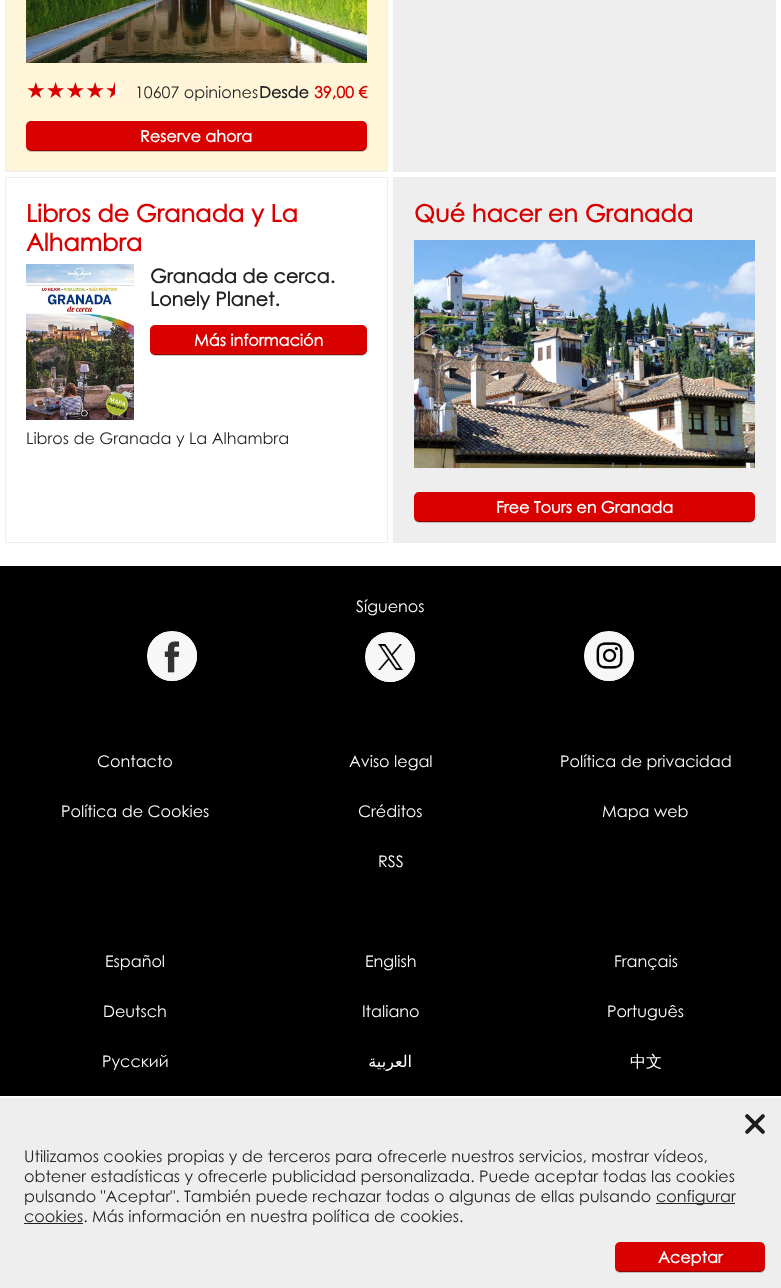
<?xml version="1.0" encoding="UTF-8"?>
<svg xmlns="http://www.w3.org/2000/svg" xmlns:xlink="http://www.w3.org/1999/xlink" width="781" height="1288">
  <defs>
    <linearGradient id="g1" gradientUnits="userSpaceOnUse" x1="26" y1="93" x2="125" y2="93"><stop offset="0.9" stop-color="#d90000" /><stop offset="0.9" stop-color="#ffffff" /><stop offset="1" stop-color="#ffffff" /></linearGradient>
  </defs>
  <rect width="100%" height="100%" fill="#ffffff" />
  <rect x="5.5" y="-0.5" width="382" height="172" fill="#fff5d9" stroke="#eeeeee" />
  <image x="26" y="0" width="341" height="63" xlink:href="image1.png" />
  <path d="M 26 146 c 0 3 2 6 5 6 h 331 c 3 0 5 -3 5 -6 c 0 3 -2 5 -5 5 h -331 c -3 0 -5 -2 -5 -5 z" fill="#ccc4ae" />
  <rect x="26" y="121" width="341" height="30" rx="5" fill="#d90000" />
  <path d="M 26 145 c 0 3 2 6 5 6 h 331 c 3 0 5 -3 5 -6 c 0 3 -2 5 -5 5 h -331 c -3 0 -5 -2 -5 -5 z" fill="#000000" fill-opacity="0.3" />
  <rect x="393" width="383" height="172" fill="#eeeeee" />
  <rect x="5.5" y="177.5" width="382" height="365" fill="none" stroke="#eeeeee" />
  <image x="26" y="264" width="108" height="156" xlink:href="image2.png" />
  <path d="M 150 350 c 0 3 2 6 5 6 h 208 c 3 -1 4 -3 4 -6 c 0 3 -2 5 -5 5 h -207 c -3 0 -5 -2 -5 -5 z" fill="#cccccc" />
  <rect x="150" y="325" width="217" height="30" rx="5" fill="#d90000" />
  <path d="M 150 349 c 0 3 2 6 5 6 h 208 c 3 -1 4 -3 4 -6 c 0 3 -2 5 -5 5 h -207 c -3 0 -5 -2 -5 -5 z" fill="#000000" fill-opacity="0.3" />
  <rect x="393" y="177" width="383" height="366" fill="#eeeeee" />
  <image x="414" y="240" width="341" height="228" xlink:href="image3.png" />
  <path d="M 414 517 c 0 3 2 6 5 6 h 331 c 3 0 5 -3 5 -6 c 0 3 -2 5 -5 5 h -331 c -3 0 -5 -2 -5 -5 z" fill="#bebebe" />
  <rect x="414" y="492" width="341" height="30" rx="5" fill="#d90000" />
  <path d="M 414 516 c 0 3 2 6 5 6 h 331 c 3 0 5 -3 5 -6 c 0 3 -2 5 -5 5 h -331 c -3 0 -5 -2 -5 -5 z" fill="#000000" fill-opacity="0.3" />
  <rect y="566" width="781" height="530" fill="#000000" />
  <image x="147" y="631" width="50" height="50" xlink:href="image4.png" />
  <image x="365" y="632" width="50" height="50" xlink:href="image5.png" />
  <image x="584" y="631" width="50" height="50" xlink:href="image6.png" />
  <rect y="1098" width="781" height="190" fill="#eeeeee" />
  <image x="745" y="1114" width="20" height="20" xlink:href="image7.png" />
  <rect x="656" y="1203" width="79" height="1" fill="#222222" />
  <rect x="24" y="1223" width="59" height="1" fill="#222222" />
  <path d="M 615 1267 v 1 c 0 3 2 5 5 5 h 140 c 3 0 5 -2 5 -5 v -1 c 0 3 -2 5 -5 5 h -140 c -3 0 -5 -2 -5 -5 z" fill="#bebebe" />
  <rect x="615" y="1242" width="150" height="30" rx="5" fill="#d90000" />
  <path d="M 615 1266 v 1 c 0 3 2 5 5 5 h 140 c 3 0 5 -2 5 -5 v -1 c 0 3 -2 5 -5 5 h -140 c -3 0 -5 -2 -5 -5 z" fill="#000000" fill-opacity="0.3" />
  <text x="26" y="98" style="font-family: DejaVu Sans; font-size: 22px; fill: url(#g1)">★★★★★</text>
  <text x="135" y="98" style="font-family: Century Gothic; font-size: 16px; fill: #222222">10607 opiniones</text>
  <text x="259" y="98" style="font-family: Century Gothic; font-size: 16px; font-weight: bold; fill: #222222">Desde</text>
  <text x="314" y="98" style="font-family: Century Gothic; font-size: 16px; font-weight: bold; fill: #d90000">39,00 €</text>
  <text x="140" y="142" style="font-family: Century Gothic; font-size: 16px; font-weight: bold; fill: #ffffff">Reserve ahora</text>
  <text x="26" y="222" style="font-family: Century Gothic; font-size: 24px; font-weight: bold; fill: #d90000">Libros de Granada y La</text>
  <text x="26" y="251" style="font-family: Century Gothic; font-size: 24px; font-weight: bold; fill: #d90000">Alhambra</text>
  <text x="150" y="283" style="font-family: Century Gothic; font-size: 19.25px; font-weight: bold; fill: #222222">Granada de cerca.</text>
  <text x="150" y="306" style="font-family: Century Gothic; font-size: 19.25px; font-weight: bold; fill: #222222">Lonely Planet.</text>
  <text x="194" y="346" style="font-family: Century Gothic; font-size: 16px; font-weight: bold; fill: #ffffff">Más información</text>
  <text x="26" y="444" style="font-family: Century Gothic; font-size: 16px; fill: #222222">Libros de Granada y La Alhambra</text>
  <text x="414" y="222" style="font-family: Century Gothic; font-size: 24px; font-weight: bold; fill: #d90000">Qué hacer en Granada</text>
  <text x="496" y="513" style="font-family: Century Gothic; font-size: 16px; font-weight: bold; fill: #ffffff">Free Tours en Granada</text>
  <text x="356" y="612" style="font-family: Century Gothic; font-size: 16px; fill: #ffffff">Síguenos</text>
  <text x="97" y="767" style="font-family: Century Gothic; font-size: 16px; fill: #ffffff">Contacto</text>
  <text x="349" y="767" style="font-family: Century Gothic; font-size: 16px; fill: #ffffff">Aviso legal</text>
  <text x="560" y="767" style="font-family: Century Gothic; font-size: 16px; fill: #ffffff">Política de privacidad</text>
  <text x="61" y="817" style="font-family: Century Gothic; font-size: 16px; fill: #ffffff">Política de Cookies</text>
  <text x="358" y="817" style="font-family: Century Gothic; font-size: 16px; fill: #ffffff">Créditos</text>
  <text x="602" y="817" style="font-family: Century Gothic; font-size: 16px; fill: #ffffff">Mapa web</text>
  <text x="378" y="867" style="font-family: Century Gothic; font-size: 16px; fill: #ffffff">RSS</text>
  <text x="105" y="967" style="font-family: Century Gothic; font-size: 16px; fill: #ffffff">Español</text>
  <text x="365" y="967" style="font-family: Century Gothic; font-size: 16px; fill: #ffffff">English</text>
  <text x="614" y="967" style="font-family: Century Gothic; font-size: 16px; fill: #ffffff">Français</text>
  <text x="103" y="1017" style="font-family: Century Gothic; font-size: 16px; fill: #ffffff">Deutsch</text>
  <text x="362" y="1017" style="font-family: Century Gothic; font-size: 16px; fill: #ffffff">Italiano</text>
  <text x="607" y="1017" style="font-family: Century Gothic; font-size: 16px; fill: #ffffff">Português</text>
  <text x="102" y="1067" style="font-family: Century Gothic; font-size: 16px; fill: #ffffff">Русский</text>
  <text x="412" y="1067" style="font-family: DejaVu Sans; font-size: 16px; direction: rtl; fill: #ffffff">العربية</text>
  <text x="630" y="1067" style="font-family: WenQuanYi Zen Hei; font-size: 16px; font-weight: 500; fill: #ffffff">中文</text>
  <text x="24" y="1162" style="font-family: Century Gothic; font-size: 16px; fill: #222222">Utilizamos cookies propias y de terceros para ofrecerle nuestros servicios, mostrar vídeos,</text>
  <text x="24" y="1182" style="font-family: Century Gothic; font-size: 16px; fill: #222222">obtener estadísticas y ofrecerle publicidad personalizada. Puede aceptar todas las cookies</text>
  <text x="24" y="1202" style="font-family: Century Gothic; font-size: 16px; fill: #222222">pulsando "Aceptar". También puede rechazar todas o algunas de ellas pulsando</text>
  <text x="656" y="1202" style="font-family: Century Gothic; font-size: 16px; fill: #222222">configurar</text>
  <text x="24" y="1222" style="font-family: Century Gothic; font-size: 16px; fill: #222222">cookies. Más información en nuestra política de cookies.</text>
  <text x="658" y="1263" style="font-family: Century Gothic; font-size: 16px; font-weight: bold; fill: #ffffff">Aceptar</text>
</svg>
